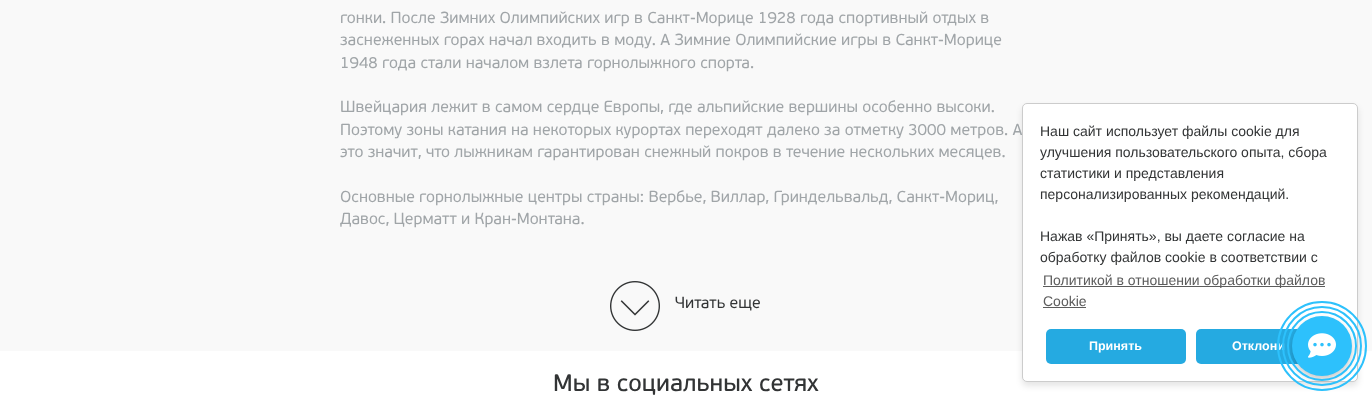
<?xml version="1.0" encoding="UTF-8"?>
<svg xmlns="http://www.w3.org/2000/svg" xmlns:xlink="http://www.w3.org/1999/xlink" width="1372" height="396">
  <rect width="100%" height="100%" fill="#ffffff" />
  <rect width="1372" height="351" fill="#f9f9f9" />
  <image x="610" y="281" width="50" height="50" xlink:href="image1.png" />
  <rect x="1022" y="107" width="336" height="279" rx="5" fill="#000000" fill-opacity="0.1" filter="blur(3px)" />
  <text x="340" y="23" style="font-family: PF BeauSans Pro; font-size: 16px; fill: #a0a5a8">гонки. После Зимних Олимпийских игр в Санкт-Морице 1928 года спортивный отдых в</text>
  <text x="340" y="45" style="font-family: PF BeauSans Pro; font-size: 16px; fill: #a0a5a8">заснеженных горах начал входить в моду. А Зимние Олимпийские игры в Санкт-Морице</text>
  <text x="340" y="68" style="font-family: PF BeauSans Pro; font-size: 16px; fill: #a0a5a8">1948 года стали началом взлета горнолыжного спорта.</text>
  <text x="340" y="112" style="font-family: PF BeauSans Pro; font-size: 16px; fill: #a0a5a8">Швейцария лежит в самом сердце Европы, где альпийские вершины особенно высоки.</text>
  <text x="340" y="135" style="font-family: PF BeauSans Pro; font-size: 16px; fill: #a0a5a8">Поэтому зоны катания на некоторых курортах переходят далеко за отметку 3000 метров. А</text>
  <text x="340" y="157" style="font-family: PF BeauSans Pro; font-size: 16px; fill: #a0a5a8">это значит, что лыжникам гарантирован снежный покров в течение нескольких месяцев.</text>
  <text x="340" y="202" style="font-family: PF BeauSans Pro; font-size: 16px; fill: #a0a5a8">Основные горнолыжные центры страны: Вербье, Виллар, Гриндельвальд, Санкт-Мориц,</text>
  <text x="340" y="224" style="font-family: PF BeauSans Pro; font-size: 16px; fill: #a0a5a8">Давос, Церматт и Кран-Монтана.</text>
  <text x="675" y="308" style="font-family: PF BeauSans Pro; font-size: 16px; fill: #323435">Читать еще</text>
  <text x="553" y="391" style="font-family: 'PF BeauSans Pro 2'; font-size: 24px; fill: #323435">Мы в социальных сетях</text>
  <rect x="1022.5" y="103.5" width="335" height="278" rx="4.5" fill="#ffffff" stroke="#cccccc" />
  <text x="1040" y="136" style="font-family: Liberation Sans; font-size: 14px; fill: #323435">Наш сайт использует файлы cookie для</text>
  <text x="1040" y="157" style="font-family: Liberation Sans; font-size: 14px; fill: #323435">улучшения пользовательского опыта, сбора</text>
  <text x="1040" y="178" style="font-family: Liberation Sans; font-size: 14px; fill: #323435">статистики и представления</text>
  <text x="1040" y="199" style="font-family: Liberation Sans; font-size: 14px; fill: #323435">персонализированных рекомендаций.</text>
  <text x="1040" y="241" style="font-family: Liberation Sans; font-size: 14px; fill: #323435">Нажав «Принять», вы даете согласие на</text>
  <text x="1040" y="262" style="font-family: Liberation Sans; font-size: 14px; fill: #323435">обработку файлов cookie в соответствии с</text>
  <rect x="1043" y="286" width="282" height="1" fill="#5c5c5c" />
  <text x="1043" y="285" style="font-family: Liberation Sans; font-size: 14px; fill: #5c5c5c">Политикой в отношении обработки файлов</text>
  <text x="1043" y="306" style="font-family: Liberation Sans; font-size: 14px; fill: #5c5c5c">Cookie</text>
  <rect x="1043" y="307" width="43" height="1" fill="#5c5c5c" />
  <rect x="1046" y="329" width="140" height="35" rx="5" fill="#25aae1" />
  <text x="1089" y="350" style="font-family: Liberation Sans; font-size: 12.5px; font-weight: bold; fill: #ffffff">Принять</text>
  <rect x="1196" y="329" width="139" height="35" rx="5" fill="#25aae1" />
  <text x="1232" y="350" style="font-family: Liberation Sans; font-size: 12.5px; font-weight: bold; fill: #ffffff">Отклони</text>
  <rect x="1292" y="320" width="60" height="60" rx="30" fill="#000000" fill-opacity="0.2" filter="blur(3px)" />
  <circle cx="1322" cy="346" r="30" fill="#2dc1fc" />
  <image x="1308" y="333" width="28" height="25" xlink:href="image2.png" />
  <circle cx="1322" cy="346" r="34" fill="none" stroke="#2dc1fc" stroke-width="2" />
  <circle cx="1322" cy="346" r="39" fill="none" stroke="#2dc1fc" stroke-width="2" />
  <circle cx="1322" cy="346" r="44" fill="none" stroke="#2dc1fc" stroke-width="2" />
</svg>
